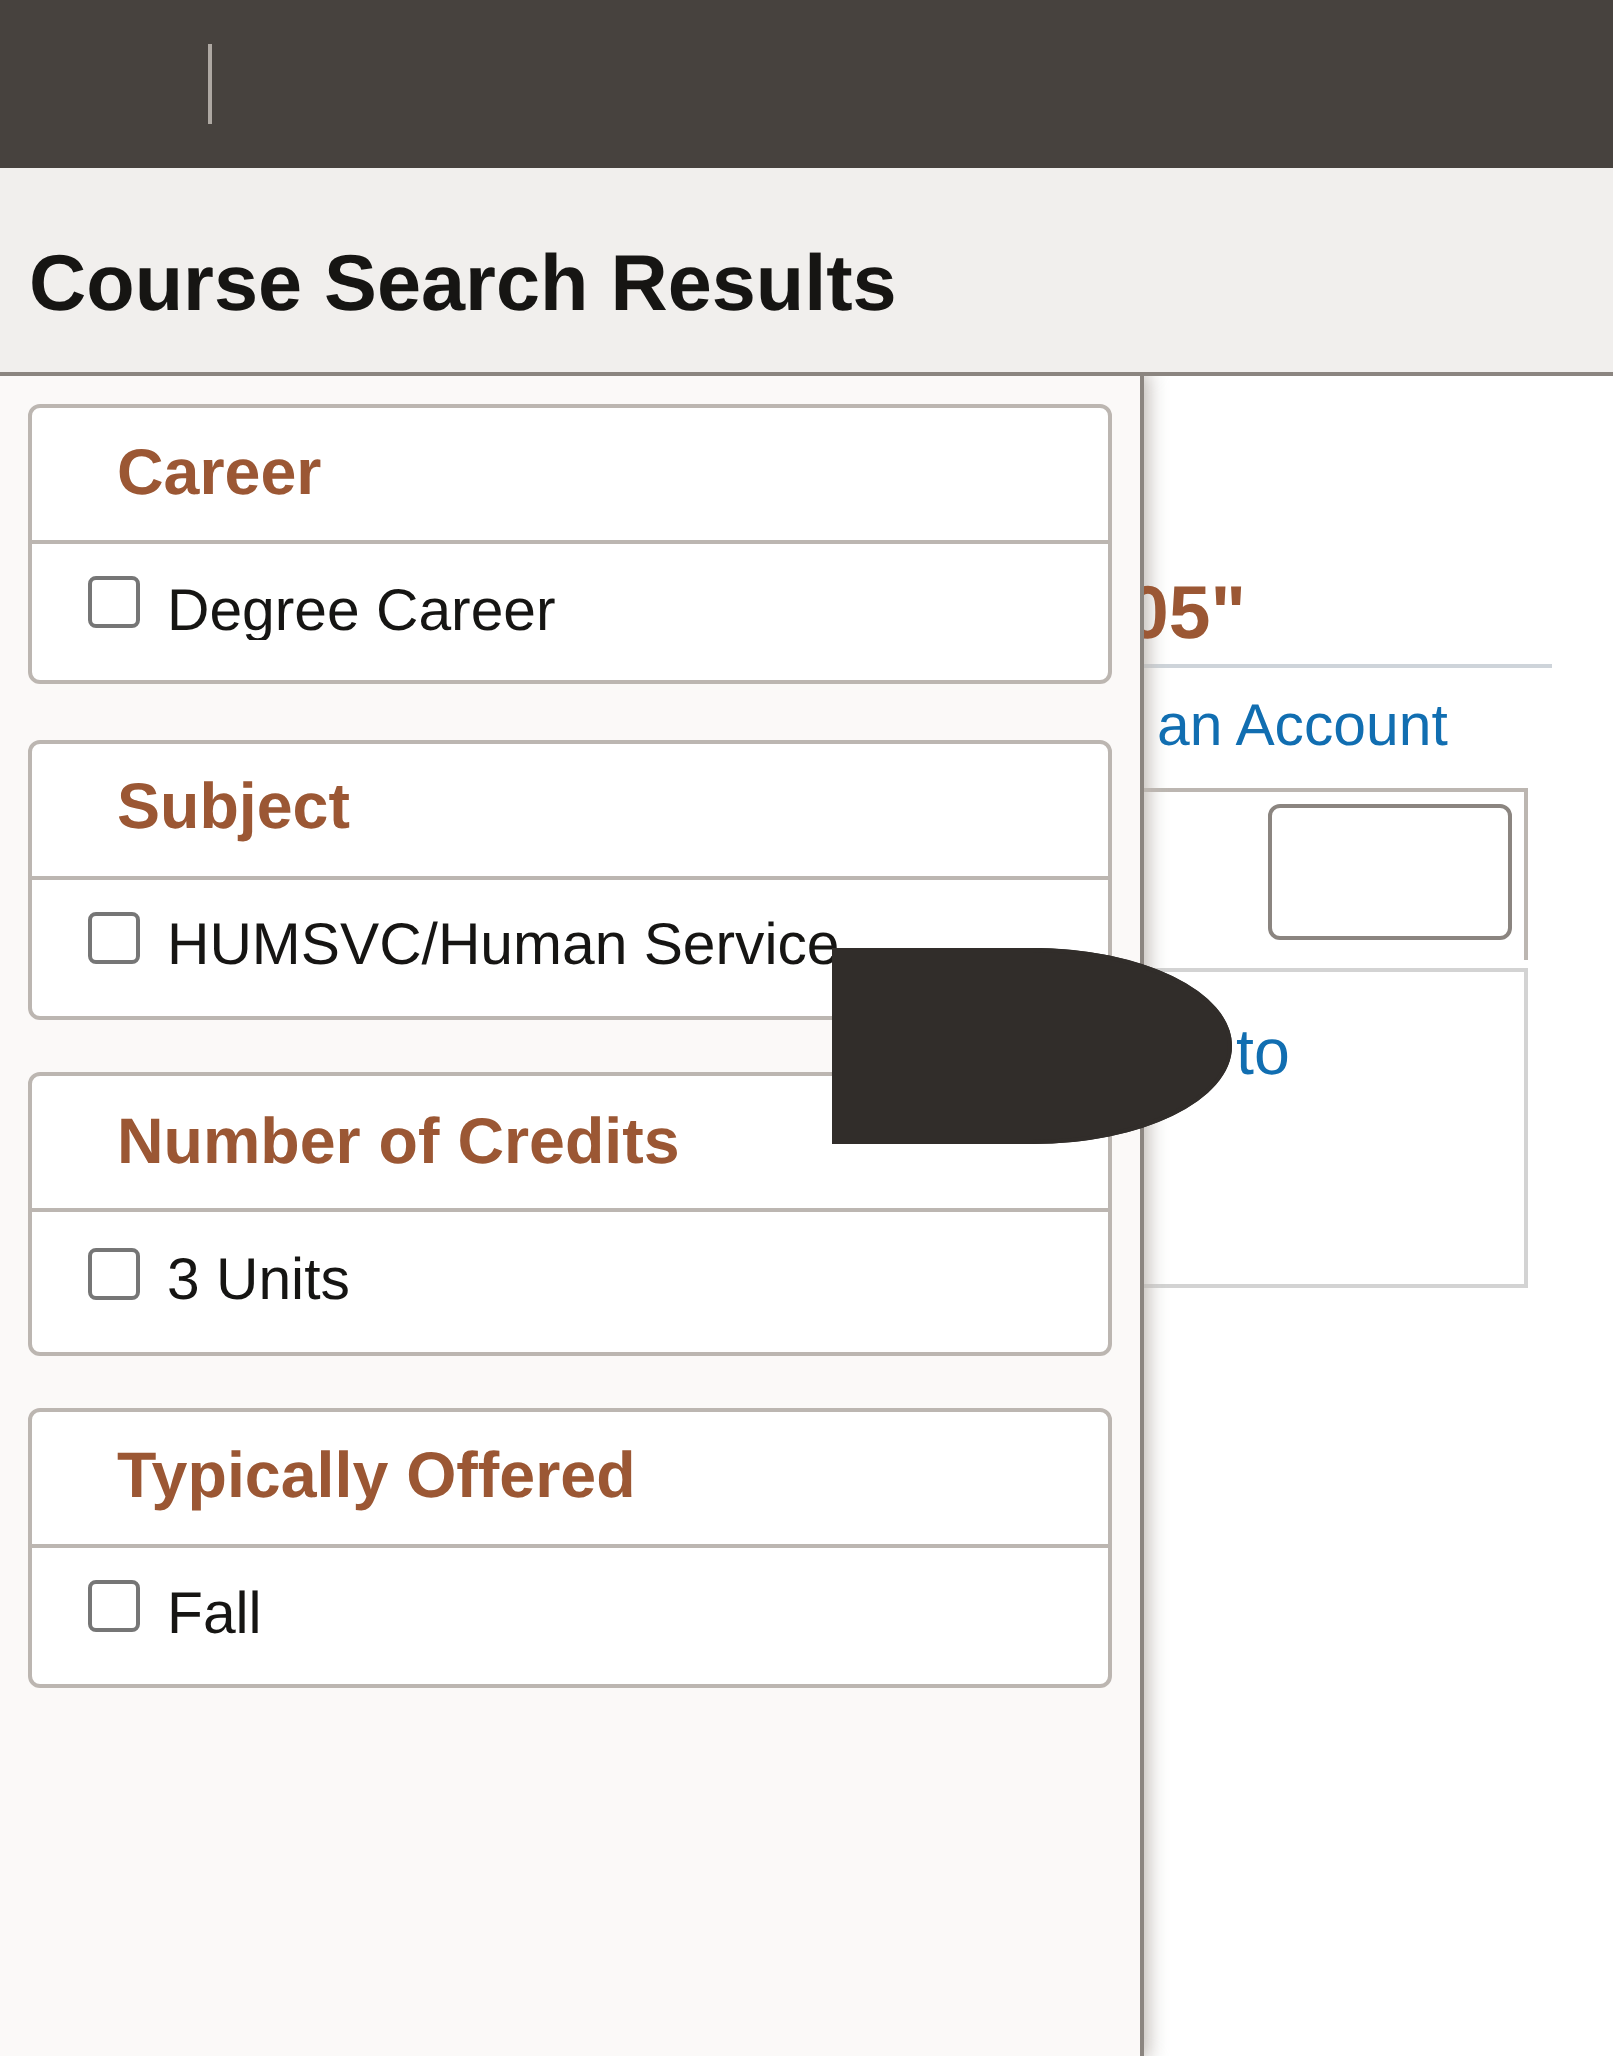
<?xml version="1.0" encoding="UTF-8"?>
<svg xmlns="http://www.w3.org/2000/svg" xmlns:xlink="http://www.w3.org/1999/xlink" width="1613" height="2056">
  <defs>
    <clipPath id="clip1"><rect x="168" y="576" width="388" height="64" /></clipPath>
  </defs>
  <rect width="100%" height="100%" fill="#ffffff" />
  <rect width="1613" height="168" fill="#47423e" />
  <rect x="208" y="44" width="4" height="80" fill="#aea8a2" />
  <rect x="1144" y="664" width="408" height="4" fill="#ced4da" />
  <rect x="1144" y="788" width="384" height="4" fill="#bcb6b1" />
  <rect x="206" y="970" width="1320" height="316" fill="none" stroke="#d3d3d3" stroke-width="4" />
  <rect x="-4" y="372" width="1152" height="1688" fill="#bcb6b1" filter="blur(10px)" />
  <rect y="168" width="1613" height="204" fill="#f1efed" />
  <rect y="372" width="1613" height="4" fill="#8b8580" />
  <rect x="1524" y="788" width="4" height="172" fill="#bcb6b1" />
  <rect x="1270" y="806" width="240" height="132" rx="10" fill="none" stroke="#8b8580" stroke-width="4" />
  <text x="29" y="310" style="font-family: Liberation Sans; font-size: 79.25px; font-weight: bold; fill: #161513">Course Search Results</text>
  <text x="1127" y="638" style="font-family: Liberation Sans; font-size: 75px; font-weight: bold; fill: #9b5734">05"</text>
  <rect y="376" width="1140" height="1680" fill="#fbf9f8" />
  <rect x="30" y="1074" width="1080" height="280" rx="10" fill="#ffffff" stroke="#bcb6b1" stroke-width="4" />
  <rect x="30" y="742" width="1080" height="276" rx="10" fill="#ffffff" stroke="#bcb6b1" stroke-width="4" />
  <text x="167" y="964" style="font-family: Liberation Sans; font-size: 58.75px; fill: #161513">HUMSVC/Human Service</text>
  <rect x="1140" y="376" width="4" height="1680" fill="#8b8580" />
  <path d="M 832 948 h 200 c 110 0 200 44 200 98 c 0 54 -90 98 -200 98 h -200 z" fill="#312d2a" />
  <path d="M 834 950 h 198 c 109.5 0 198 43 198 96 c 0 53 -88.5 96 -198 96 h -198 z" fill="none" stroke="#312d2a" stroke-width="4" />
  <rect x="30" y="1410" width="1080" height="276" rx="10" fill="#ffffff" stroke="#bcb6b1" stroke-width="4" />
  <text x="167" y="1633" style="font-family: Liberation Sans; font-size: 58.75px; fill: #161513">Fall</text>
  <rect x="90" y="1582" width="48" height="48" rx="6" fill="none" stroke="#767676" stroke-width="4" />
  <text x="117" y="1497" style="font-family: Liberation Sans; font-size: 64.5px; font-weight: bold; fill: #9b5734">Typically Offered</text>
  <rect x="32" y="1544" width="1076" height="4" fill="#bcb6b1" />
  <text x="167" y="1299" style="font-family: Liberation Sans; font-size: 58.75px; fill: #161513">3 Units</text>
  <rect x="90" y="1250" width="48" height="48" rx="6" fill="none" stroke="#767676" stroke-width="4" />
  <text x="117" y="1163" style="font-family: Liberation Sans; font-size: 64.5px; font-weight: bold; fill: #9b5734">Number of Credits</text>
  <rect x="32" y="1208" width="1076" height="4" fill="#bcb6b1" />
  <rect x="90" y="914" width="48" height="48" rx="6" fill="none" stroke="#767676" stroke-width="4" />
  <text x="117" y="828" style="font-family: Liberation Sans; font-size: 64.5px; font-weight: bold; fill: #9b5734">Subject</text>
  <rect x="32" y="876" width="1076" height="4" fill="#bcb6b1" />
  <rect x="30" y="406" width="1080" height="276" rx="10" fill="#ffffff" stroke="#bcb6b1" stroke-width="4" />
  <g clip-path="url(#clip1)">
    <text x="167" y="630" style="font-family: Liberation Sans; font-size: 58.75px; fill: #161513">Degree Career</text>
  </g>
  <rect x="90" y="578" width="48" height="48" rx="6" fill="none" stroke="#767676" stroke-width="4" />
  <text x="117" y="494" style="font-family: Liberation Sans; font-size: 64.5px; font-weight: bold; fill: #9b5734">Career</text>
  <rect x="32" y="540" width="1076" height="4" fill="#bcb6b1" />
  <text x="1157" y="745" style="font-family: Liberation Sans; font-size: 58.75px; fill: #116eb1">an Account</text>
  <text x="1236" y="1074" style="font-family: Liberation Sans; font-size: 64.5px; fill: #116eb1">to</text>
</svg>
